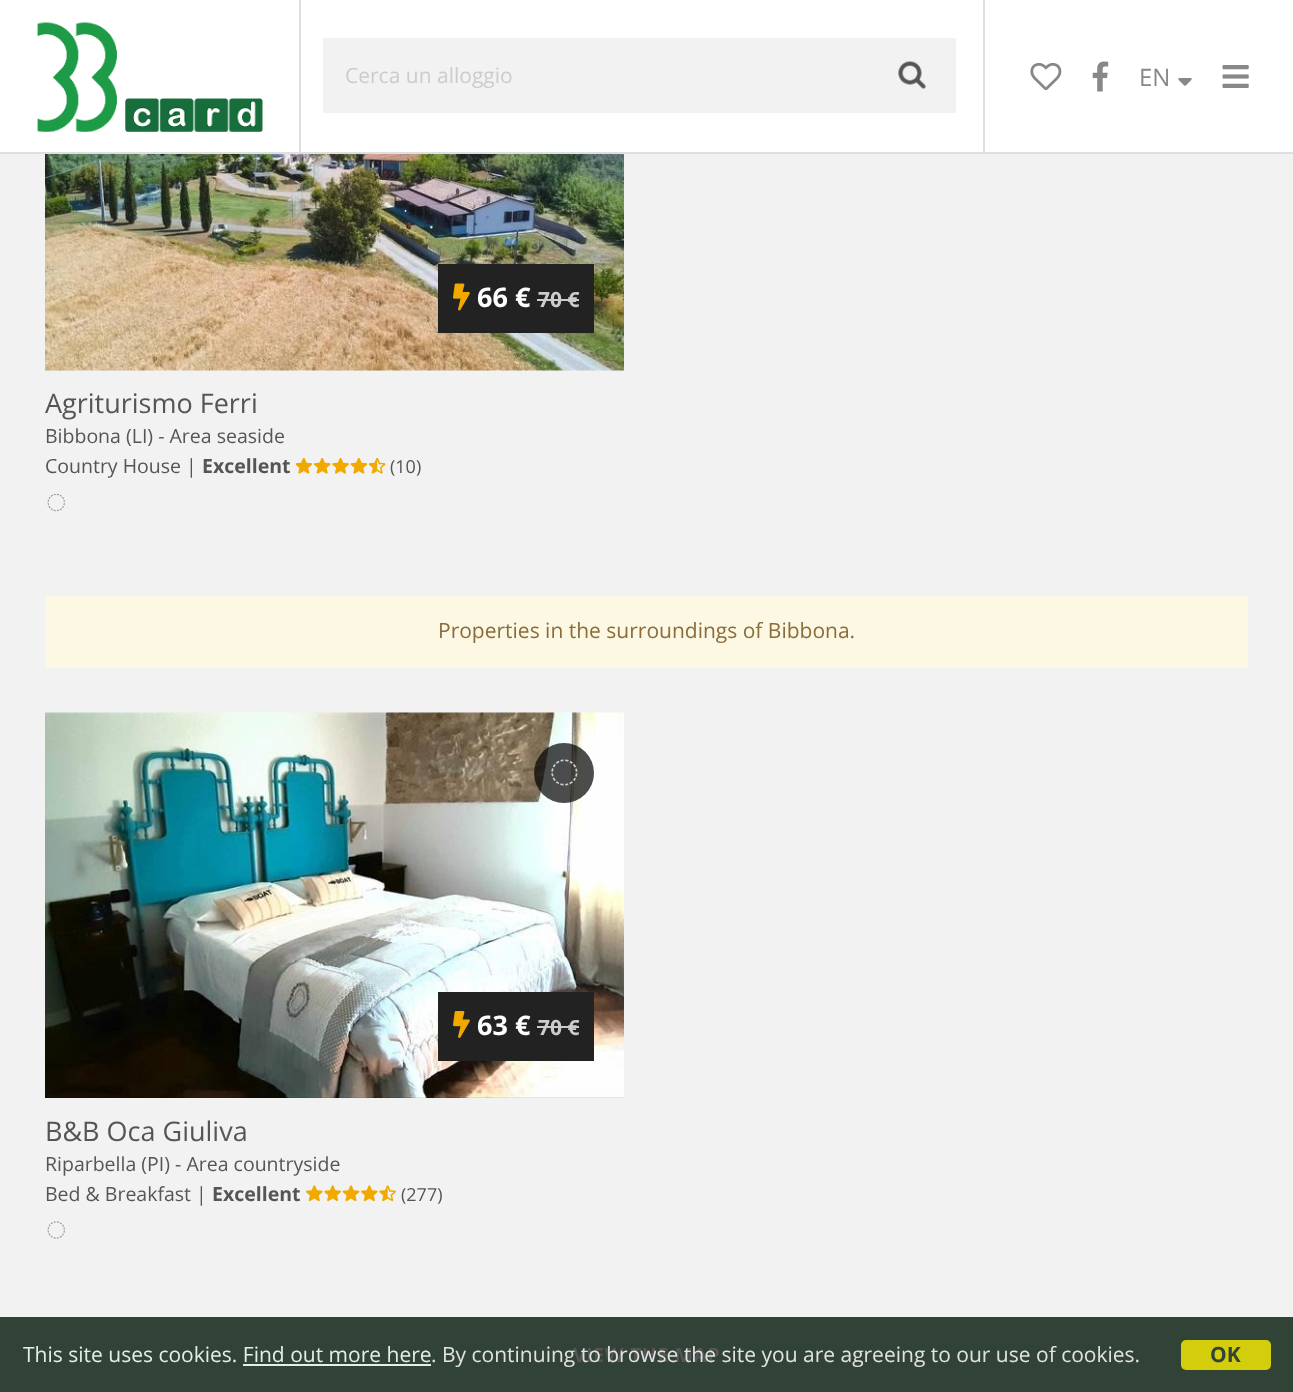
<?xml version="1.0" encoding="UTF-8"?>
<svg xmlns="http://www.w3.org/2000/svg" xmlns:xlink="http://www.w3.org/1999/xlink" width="1293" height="1392">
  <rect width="100%" height="100%" fill="#f2f2f2" />
  <rect width="1293" height="152" fill="#ffffff" />
  <rect y="152" width="1293" height="2" fill="#dce0e0" />
  <rect x="299" width="2" height="153" fill="#dce0e0" />
  <image x="37" y="22" width="226" height="110" xlink:href="image1.png" />
  <rect x="323" y="38" width="633" height="75" fill="#f2f2f2" />
  <image x="898" y="61" width="28" height="28" xlink:href="image2.png" />
  <rect x="983" width="2" height="153" fill="#dce0e0" />
  <image x="1030" y="62" width="32" height="28" xlink:href="image3.png" />
  <image x="1092" y="61" width="17" height="31" xlink:href="image4.png" />
  <image x="1178" y="78" width="14" height="8" xlink:href="image5.png" />
  <image x="1222" y="65" width="27" height="23" xlink:href="image6.png" />
  <image x="45" y="154" width="579" height="217" xlink:href="image7.png" />
  <rect x="438" y="264" width="156" height="69" fill="#222222" />
  <image x="453" y="283" width="17" height="28" xlink:href="image8.png" />
  <rect x="537" y="299" width="42" height="2" fill="#cccccc" />
  <image x="296" y="458" width="90" height="16" xlink:href="image9.png" />
  <image x="47" y="493" width="18" height="19" xlink:href="image10.png" />
  <rect x="45" y="596" width="1203" height="72" fill="#fcf8e3" />
  <image x="45" y="712" width="579" height="386" xlink:href="image11.png" />
  <circle cx="564" cy="773" r="30" fill="#000000" fill-opacity="0.7" />
  <image x="551" y="759" width="27" height="27" xlink:href="image12.png" />
  <rect x="438" y="992" width="156" height="69" fill="#222222" />
  <image x="453" y="1011" width="17" height="27" xlink:href="image13.png" />
  <rect x="537" y="1026" width="42" height="2" fill="#cccccc" />
  <image x="306" y="1185" width="90" height="17" xlink:href="image14.png" />
  <image x="47" y="1221" width="18" height="18" xlink:href="image15.png" />
  <rect y="1317" width="1293" height="75" fill="#314236" />
  <rect x="243" y="1364" width="188" height="2" fill="#dff0e4" />
  <rect x="1181" y="1340" width="90" height="30" rx="5" fill="#d3cd0b" />
  <text x="345" y="83" style="font-family: Open Sans; font-size: 21px; fill: #cccccc">Cerca un alloggio</text>
  <text x="1139" y="86" style="font-family: Open Sans; font-size: 24px; fill: #888888">EN</text>
  <text x="477" y="307" style="font-family: Open Sans; font-size: 27px; font-weight: bold; fill: #ffffff">66 €</text>
  <text x="538" y="307" style="font-family: Open Sans; font-size: 21px; font-weight: bold; fill: #cccccc">70 €</text>
  <text x="45" y="413" style="font-family: Open Sans; font-size: 27px; fill: #555555">Agriturismo Ferri</text>
  <text x="45" y="443" style="font-family: Open Sans; font-size: 19.5px; fill: #555555">Bibbona (LI) - Area seaside</text>
  <text x="45" y="473" style="font-family: Open Sans; font-size: 19.5px; fill: #555555">Country House |</text>
  <text x="202" y="473" style="font-family: Open Sans; font-size: 19.5px; font-weight: bold; fill: #555555">Excellent</text>
  <text x="390" y="473" style="font-family: Open Sans; font-size: 18px; fill: #555555">(10)</text>
  <text x="438" y="638" style="font-family: Open Sans; font-size: 21px; fill: #8a6d3b">Properties in the surroundings of Bibbona.</text>
  <text x="477" y="1035" style="font-family: Open Sans; font-size: 27px; font-weight: bold; fill: #ffffff">63 €</text>
  <text x="538" y="1035" style="font-family: Open Sans; font-size: 21px; font-weight: bold; fill: #cccccc">70 €</text>
  <text x="45" y="1141" style="font-family: Open Sans; font-size: 27px; fill: #555555">B&amp;B Oca Giuliva</text>
  <text x="45" y="1171" style="font-family: Open Sans; font-size: 19.5px; fill: #555555">Riparbella (PI) - Area countryside</text>
  <text x="45" y="1201" style="font-family: Open Sans; font-size: 19.5px; fill: #555555">Bed &amp; Breakfast |</text>
  <text x="212" y="1201" style="font-family: Open Sans; font-size: 19.5px; font-weight: bold; fill: #555555">Excellent</text>
  <text x="401" y="1201" style="font-family: Open Sans; font-size: 18px; fill: #555555">(277)</text>
  <text x="23" y="1362" style="font-family: Open Sans; font-size: 21px; fill: #dff0e4">This site uses cookies. Find out more here</text>
  <text x="1210" y="1362" style="font-family: Open Sans; font-size: 21px; font-weight: bold; fill: #314236">OK</text>
  <text x="573" y="1362" style="font-family: Open Sans; font-size: 19.5px; font-weight: bold; letter-spacing: 0.6px; fill: #555555">VIEW THE MAP</text>
  <text x="431" y="1362" style="font-family: Open Sans; font-size: 21px; fill: #e1e3e1">. By continuing to browse the site you are agreeing to our use of cookies.</text>
</svg>
